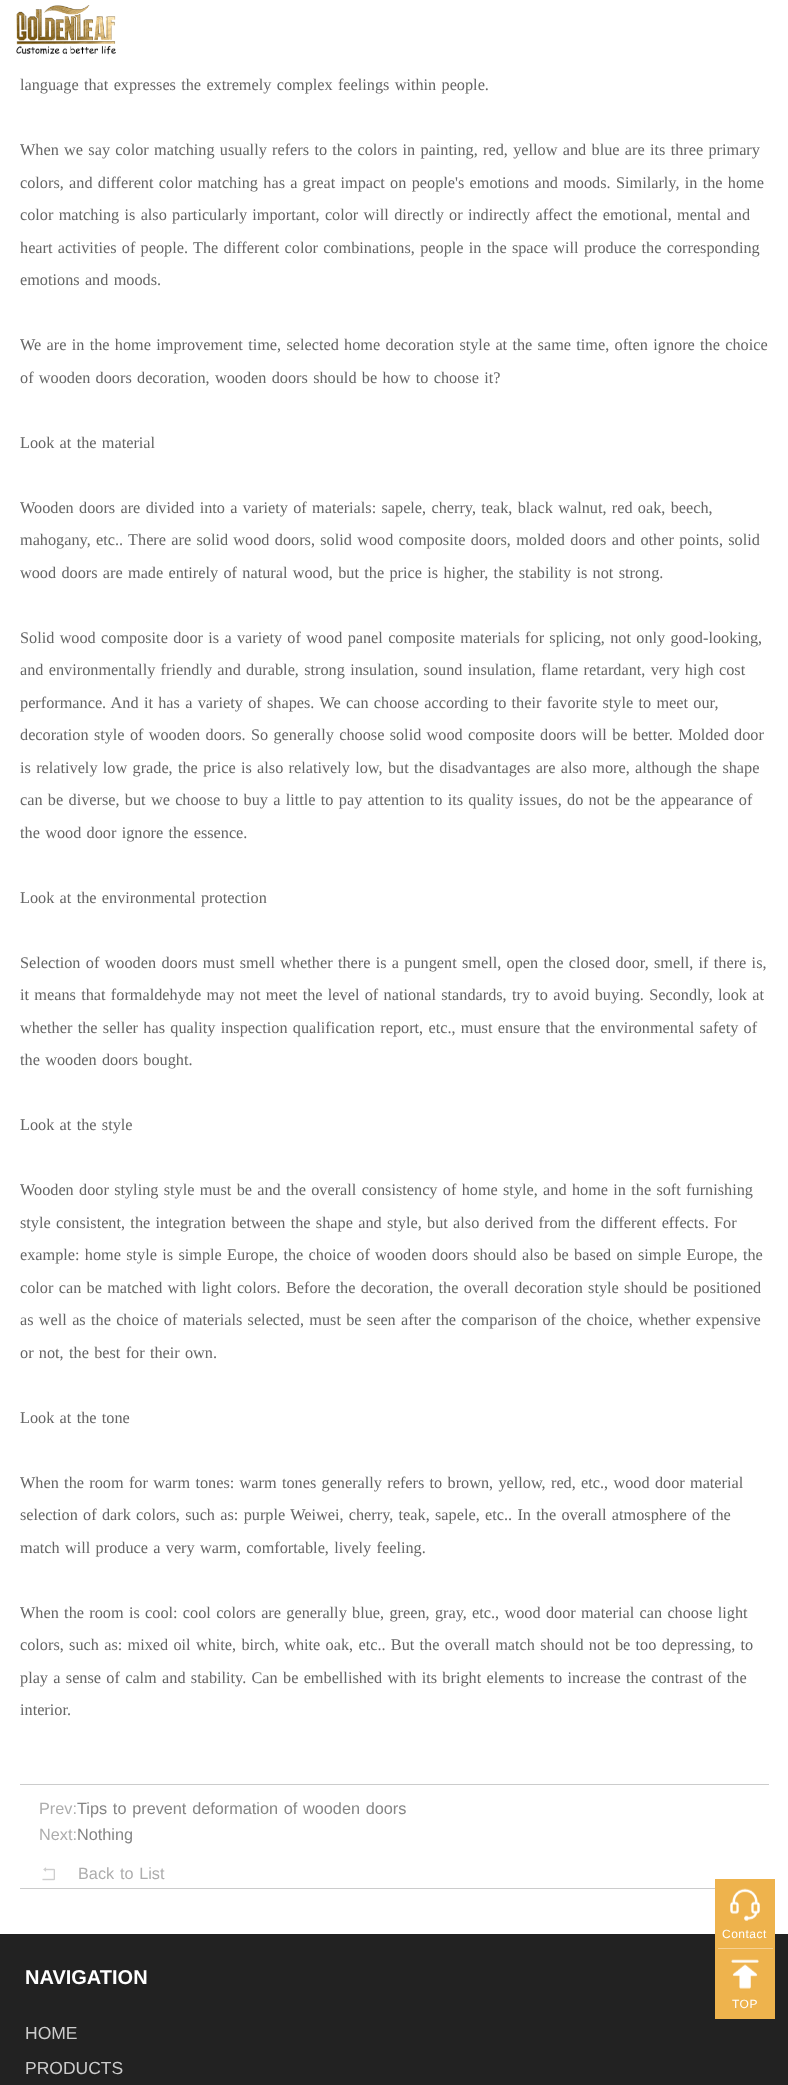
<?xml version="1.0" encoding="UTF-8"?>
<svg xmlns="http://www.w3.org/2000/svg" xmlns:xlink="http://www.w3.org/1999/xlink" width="788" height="2085">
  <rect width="100%" height="100%" fill="#ffffff" />
  <image x="16" y="5" width="100" height="50" xlink:href="image1.png" />
  <rect x="20" y="1784" width="749" height="1" fill="#cccccc" />
  <image x="42" y="1867" width="13" height="14" xlink:href="image2.png" />
  <rect x="20" y="1888" width="695" height="1" fill="#cccccc" />
  <rect y="1934" width="788" height="151" fill="#222222" />
  <rect x="715" y="1879" width="60" height="140" fill="#eeb34d" />
  <image x="730" y="1888" width="30" height="33" xlink:href="image3.png" />
  <rect x="718" y="1948" width="55" height="1" fill="#f5d194" />
  <image x="731" y="1959" width="28" height="30" xlink:href="image4.png" />
  <text x="20" y="90" word-spacing="1.25" style="font-family: Liberation Serif; font-size: 16.25px; fill: #666666">language that expresses the extremely complex feelings within people.</text>
  <text x="20" y="155" word-spacing="1.25" style="font-family: Liberation Serif; font-size: 16.25px; fill: #666666">When we say color matching usually refers to the colors in painting, red, yellow and blue are its three primary</text>
  <text x="20" y="188" word-spacing="1.25" style="font-family: Liberation Serif; font-size: 16.25px; fill: #666666">colors, and different color matching has a great impact on people's emotions and moods. Similarly, in the home</text>
  <text x="20" y="220" word-spacing="1.25" style="font-family: Liberation Serif; font-size: 16.25px; fill: #666666">color matching is also particularly important, color will directly or indirectly affect the emotional, mental and</text>
  <text x="20" y="253" word-spacing="1.25" style="font-family: Liberation Serif; font-size: 16.25px; fill: #666666">heart activities of people. The different color combinations, people in the space will produce the corresponding</text>
  <text x="20" y="285" word-spacing="1.25" style="font-family: Liberation Serif; font-size: 16.25px; fill: #666666">emotions and moods.</text>
  <text x="20" y="350" word-spacing="1.25" style="font-family: Liberation Serif; font-size: 16.25px; fill: #666666">We are in the home improvement time, selected home decoration style at the same time, often ignore the choice</text>
  <text x="20" y="383" word-spacing="1.25" style="font-family: Liberation Serif; font-size: 16.25px; fill: #666666">of wooden doors decoration, wooden doors should be how to choose it?</text>
  <text x="20" y="448" word-spacing="1.25" style="font-family: Liberation Serif; font-size: 16.25px; fill: #666666">Look at the material</text>
  <text x="20" y="513" word-spacing="1.25" style="font-family: Liberation Serif; font-size: 16.25px; fill: #666666">Wooden doors are divided into a variety of materials: sapele, cherry, teak, black walnut, red oak, beech,</text>
  <text x="20" y="545" word-spacing="1.25" style="font-family: Liberation Serif; font-size: 16.25px; fill: #666666">mahogany, etc.. There are solid wood doors, solid wood composite doors, molded doors and other points, solid</text>
  <text x="20" y="578" word-spacing="1.25" style="font-family: Liberation Serif; font-size: 16.25px; fill: #666666">wood doors are made entirely of natural wood, but the price is higher, the stability is not strong.</text>
  <text x="20" y="643" word-spacing="1.25" style="font-family: Liberation Serif; font-size: 16.25px; fill: #666666">Solid wood composite door is a variety of wood panel composite materials for splicing, not only good-looking,</text>
  <text x="20" y="675" word-spacing="1.25" style="font-family: Liberation Serif; font-size: 16.25px; fill: #666666">and environmentally friendly and durable, strong insulation, sound insulation, flame retardant, very high cost</text>
  <text x="20" y="708" word-spacing="1.25" style="font-family: Liberation Serif; font-size: 16.25px; fill: #666666">performance. And it has a variety of shapes. We can choose according to their favorite style to meet our,</text>
  <text x="20" y="740" word-spacing="1.25" style="font-family: Liberation Serif; font-size: 16.25px; fill: #666666">decoration style of wooden doors. So generally choose solid wood composite doors will be better. Molded door</text>
  <text x="20" y="773" word-spacing="1.25" style="font-family: Liberation Serif; font-size: 16.25px; fill: #666666">is relatively low grade, the price is also relatively low, but the disadvantages are also more, although the shape</text>
  <text x="20" y="805" word-spacing="1.25" style="font-family: Liberation Serif; font-size: 16.25px; fill: #666666">can be diverse, but we choose to buy a little to pay attention to its quality issues, do not be the appearance of</text>
  <text x="20" y="838" word-spacing="1.25" style="font-family: Liberation Serif; font-size: 16.25px; fill: #666666">the wood door ignore the essence.</text>
  <text x="20" y="903" word-spacing="1.25" style="font-family: Liberation Serif; font-size: 16.25px; fill: #666666">Look at the environmental protection</text>
  <text x="20" y="968" word-spacing="1.25" style="font-family: Liberation Serif; font-size: 16.25px; fill: #666666">Selection of wooden doors must smell whether there is a pungent smell, open the closed door, smell, if there is,</text>
  <text x="20" y="1000" word-spacing="1.25" style="font-family: Liberation Serif; font-size: 16.25px; fill: #666666">it means that formaldehyde may not meet the level of national standards, try to avoid buying. Secondly, look at</text>
  <text x="20" y="1033" word-spacing="1.25" style="font-family: Liberation Serif; font-size: 16.25px; fill: #666666">whether the seller has quality inspection qualification report, etc., must ensure that the environmental safety of</text>
  <text x="20" y="1065" word-spacing="1.25" style="font-family: Liberation Serif; font-size: 16.25px; fill: #666666">the wooden doors bought.</text>
  <text x="20" y="1130" word-spacing="1.25" style="font-family: Liberation Serif; font-size: 16.25px; fill: #666666">Look at the style</text>
  <text x="20" y="1195" word-spacing="1.25" style="font-family: Liberation Serif; font-size: 16.25px; fill: #666666">Wooden door styling style must be and the overall consistency of home style, and home in the soft furnishing</text>
  <text x="20" y="1228" word-spacing="1.25" style="font-family: Liberation Serif; font-size: 16.25px; fill: #666666">style consistent, the integration between the shape and style, but also derived from the different effects. For</text>
  <text x="20" y="1260" word-spacing="1.25" style="font-family: Liberation Serif; font-size: 16.25px; fill: #666666">example: home style is simple Europe, the choice of wooden doors should also be based on simple Europe, the</text>
  <text x="20" y="1293" word-spacing="1.25" style="font-family: Liberation Serif; font-size: 16.25px; fill: #666666">color can be matched with light colors. Before the decoration, the overall decoration style should be positioned</text>
  <text x="20" y="1325" word-spacing="1.25" style="font-family: Liberation Serif; font-size: 16.25px; fill: #666666">as well as the choice of materials selected, must be seen after the comparison of the choice, whether expensive</text>
  <text x="20" y="1358" word-spacing="1.25" style="font-family: Liberation Serif; font-size: 16.25px; fill: #666666">or not, the best for their own.</text>
  <text x="20" y="1423" word-spacing="1.25" style="font-family: Liberation Serif; font-size: 16.25px; fill: #666666">Look at the tone</text>
  <text x="20" y="1488" word-spacing="1.25" style="font-family: Liberation Serif; font-size: 16.25px; fill: #666666">When the room for warm tones: warm tones generally refers to brown, yellow, red, etc., wood door material</text>
  <text x="20" y="1520" word-spacing="1.25" style="font-family: Liberation Serif; font-size: 16.25px; fill: #666666">selection of dark colors, such as: purple Weiwei, cherry, teak, sapele, etc.. In the overall atmosphere of the</text>
  <text x="20" y="1553" word-spacing="1.25" style="font-family: Liberation Serif; font-size: 16.25px; fill: #666666">match will produce a very warm, comfortable, lively feeling.</text>
  <text x="20" y="1618" word-spacing="1.25" style="font-family: Liberation Serif; font-size: 16.25px; fill: #666666">When the room is cool: cool colors are generally blue, green, gray, etc., wood door material can choose light</text>
  <text x="20" y="1650" word-spacing="1.25" style="font-family: Liberation Serif; font-size: 16.25px; fill: #666666">colors, such as: mixed oil white, birch, white oak, etc.. But the overall match should not be too depressing, to</text>
  <text x="20" y="1683" word-spacing="1.25" style="font-family: Liberation Serif; font-size: 16.25px; fill: #666666">play a sense of calm and stability. Can be embellished with its bright elements to increase the contrast of the</text>
  <text x="20" y="1715" style="font-family: Liberation Serif; font-size: 16.25px; fill: #666666">interior.</text>
  <text x="39" y="1814" style="font-family: Liberation Sans; font-size: 16.25px; fill: #adadad">Prev:</text>
  <text x="77" y="1814" word-spacing="1.25" style="font-family: Liberation Sans; font-size: 16.25px; fill: #858585">Tips to prevent deformation of wooden doors</text>
  <text x="39" y="1840" style="font-family: Liberation Sans; font-size: 16.25px; fill: #adadad">Next:</text>
  <text x="77" y="1840" style="font-family: Liberation Sans; font-size: 16.25px; fill: #858585">Nothing</text>
  <text x="78" y="1879" word-spacing="1.25" style="font-family: Liberation Sans; font-size: 16.25px; fill: #adadad">Back to List</text>
  <text x="25" y="1984" style="font-family: Liberation Sans; font-size: 20px; font-weight: bold; fill: #ffffff">NAVIGATION</text>
  <text x="25" y="2039" style="font-family: Liberation Sans; font-size: 17.5px; fill: #cccccc">HOME</text>
  <text x="25" y="2074" style="font-family: Liberation Sans; font-size: 17.5px; fill: #cccccc">PRODUCTS</text>
  <text x="722" y="1938" style="font-family: Liberation Sans; font-size: 12px; letter-spacing: 0.5px; fill: #ffffff">Contact</text>
  <text x="732" y="2008" style="font-family: Liberation Sans; font-size: 12px; letter-spacing: 0.5px; fill: #ffffff">TOP</text>
</svg>
